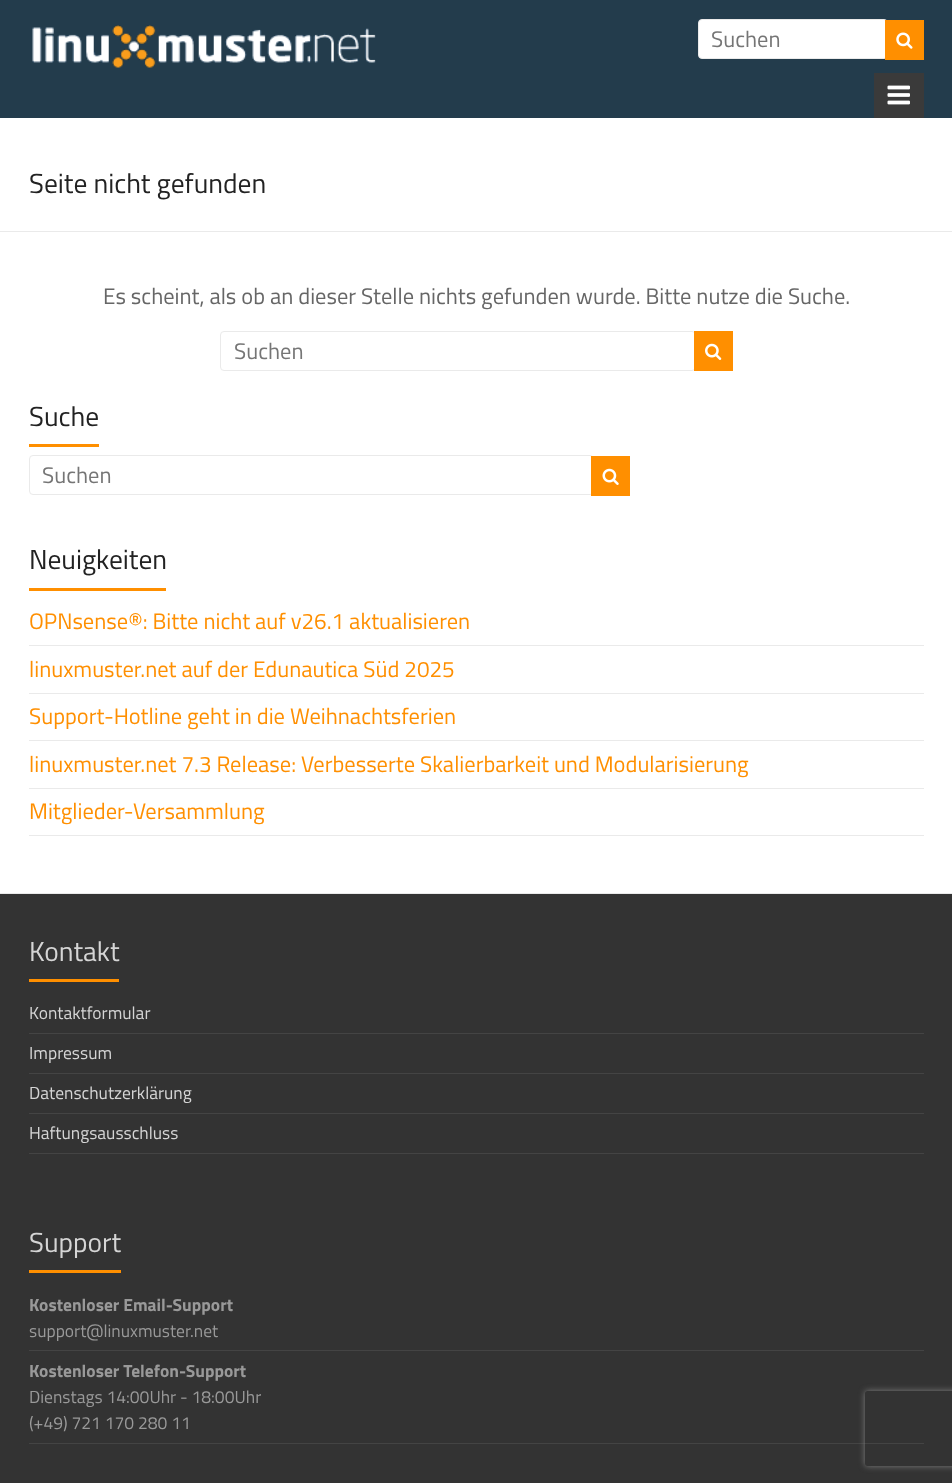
<?xml version="1.0" encoding="UTF-8"?>
<svg xmlns="http://www.w3.org/2000/svg" xmlns:xlink="http://www.w3.org/1999/xlink" width="952" height="1483">
  <defs>
    <clipPath id="clip1"><path d="M 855 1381 h 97 v 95 h -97 z m 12.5 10 h 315 c 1.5 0 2.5 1 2.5 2.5 v 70 c 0 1.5 -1 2.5 -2.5 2.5 h -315 c -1.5 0 -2.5 -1 -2.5 -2.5 v -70 c 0 -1.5 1 -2.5 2.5 -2.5 z" clip-rule="evenodd" /></clipPath>
  </defs>
  <rect width="100%" height="100%" fill="#ffffff" />
  <rect width="952" height="118" fill="#233c4c" />
  <image x="32" y="25" width="344" height="43" xlink:href="image1.png" />
  <rect x="698.5" y="19.5" width="189" height="39" rx="3.5" fill="#ffffff" stroke="#eaeaea" />
  <rect x="885" y="20" width="39" height="40" fill="#ff8f00" />
  <image x="896" y="32" width="17" height="17" xlink:href="image2.png" />
  <rect x="874" y="73" width="50" height="45" fill="#3a3a3a" />
  <image x="887" y="85" width="23" height="20" xlink:href="image3.png" />
  <rect y="231" width="952" height="1" fill="#eaeaea" />
  <rect x="220.5" y="331.5" width="475" height="39" rx="3.5" fill="none" stroke="#eaeaea" />
  <rect x="694" y="331" width="39" height="40" fill="#ff8f00" />
  <image x="705" y="343" width="17" height="17" xlink:href="image4.png" />
  <rect x="29" y="444" width="70" height="3" fill="#ff8f00" />
  <rect x="29.5" y="455.5" width="564" height="39" rx="3.5" fill="none" stroke="#eaeaea" />
  <rect x="591" y="456" width="39" height="40" fill="#ff8f00" />
  <image x="602" y="468" width="17" height="17" xlink:href="image5.png" />
  <rect x="29" y="588" width="137" height="3" fill="#ff8f00" />
  <rect x="29" y="645" width="895" height="1" fill="#eaeaea" />
  <rect x="29" y="693" width="895" height="1" fill="#eaeaea" />
  <rect x="29" y="740" width="895" height="1" fill="#eaeaea" />
  <rect x="29" y="788" width="895" height="1" fill="#eaeaea" />
  <rect x="29" y="835" width="895" height="1" fill="#eaeaea" />
  <rect y="894" width="952" height="589" fill="#333333" />
  <rect y="893" width="952" height="1" fill="#eaeaea" />
  <rect x="29" y="979" width="90" height="3" fill="#ff8f00" />
  <rect x="29" y="1033" width="895" height="1" fill="#444444" />
  <rect x="29" y="1073" width="895" height="1" fill="#444444" />
  <rect x="29" y="1113" width="895" height="1" fill="#444444" />
  <rect x="29" y="1153" width="895" height="1" fill="#444444" />
  <rect x="29" y="1270" width="92" height="3" fill="#ff8f00" />
  <rect x="29" y="1350" width="895" height="1" fill="#444444" />
  <rect x="29" y="1443" width="895" height="1" fill="#444444" />
  <g clip-path="url(#clip1)">
    <rect x="865" y="1391" width="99" height="75" rx="2.5" fill="#808080" filter="blur(3px)" />
  </g>
  <text x="711" y="47" style="font-family: Titillium Web; font-size: 22.5px; fill: #757575">Suchen</text>
  <text x="29" y="193" style="font-family: Titillium Web; font-size: 27.5px; fill: #222222">Seite nicht gefunden</text>
  <text x="103" y="304" style="font-family: Titillium Web; font-size: 22.5px; fill: #666666">Es scheint, als ob an dieser Stelle nichts gefunden wurde. Bitte nutze die Suche.</text>
  <text x="234" y="359" style="font-family: Titillium Web; font-size: 22.5px; fill: #757575">Suchen</text>
  <text x="29" y="426" style="font-family: Titillium Web; font-size: 27.5px; fill: #222222">Suche</text>
  <text x="42" y="483" style="font-family: Titillium Web; font-size: 22.5px; fill: #757575">Suchen</text>
  <text x="29" y="569" style="font-family: Titillium Web; font-size: 27.5px; fill: #222222">Neuigkeiten</text>
  <text x="29" y="629" style="font-family: Titillium Web; font-size: 22.5px; fill: #ff8f00">OPNsense®: Bitte nicht auf v26.1 aktualisieren</text>
  <text x="29" y="677" style="font-family: Titillium Web; font-size: 22.5px; fill: #ff8f00">linuxmuster.net auf der Edunautica Süd 2025</text>
  <text x="29" y="724" style="font-family: Titillium Web; font-size: 22.5px; fill: #ff8f00">Support-Hotline geht in die Weihnachtsferien</text>
  <text x="29" y="772" style="font-family: Titillium Web; font-size: 22.5px; fill: #ff8f00">linuxmuster.net 7.3 Release: Verbesserte Skalierbarkeit und Modularisierung</text>
  <text x="29" y="819" style="font-family: Titillium Web; font-size: 22.5px; fill: #ff8f00">Mitglieder-Versammlung</text>
  <text x="29" y="961" style="font-family: Titillium Web; font-size: 27.5px; fill: #d5d5d5">Kontakt</text>
  <text x="29" y="1019" style="font-family: Titillium Web; font-size: 17.5px; fill: #d5d5d5">Kontaktformular</text>
  <text x="29" y="1059" style="font-family: Titillium Web; font-size: 17.5px; fill: #d5d5d5">Impressum</text>
  <text x="29" y="1099" style="font-family: Titillium Web; font-size: 17.5px; fill: #d5d5d5">Datenschutzerklärung</text>
  <text x="29" y="1139" style="font-family: Titillium Web; font-size: 17.5px; fill: #d5d5d5">Haftungsausschluss</text>
  <text x="29" y="1252" style="font-family: Titillium Web; font-size: 27.5px; fill: #d5d5d5">Support</text>
  <text x="29" y="1311" style="font-family: Titillium Web; font-size: 17.5px; font-weight: bold; fill: #999999">Kostenloser Email-Support</text>
  <text x="29" y="1337" style="font-family: Titillium Web; font-size: 17.5px; fill: #999999">support@linuxmuster.net</text>
  <text x="29" y="1377" style="font-family: Titillium Web; font-size: 17.5px; font-weight: bold; fill: #999999">Kostenloser Telefon-Support</text>
  <text x="29" y="1403" style="font-family: Titillium Web; font-size: 17.5px; fill: #999999">Dienstags 14:00Uhr - 18:00Uhr</text>
  <text x="29" y="1429" style="font-family: Titillium Web; font-size: 17.5px; fill: #999999">(+49) 721 170 280 11</text>
</svg>
